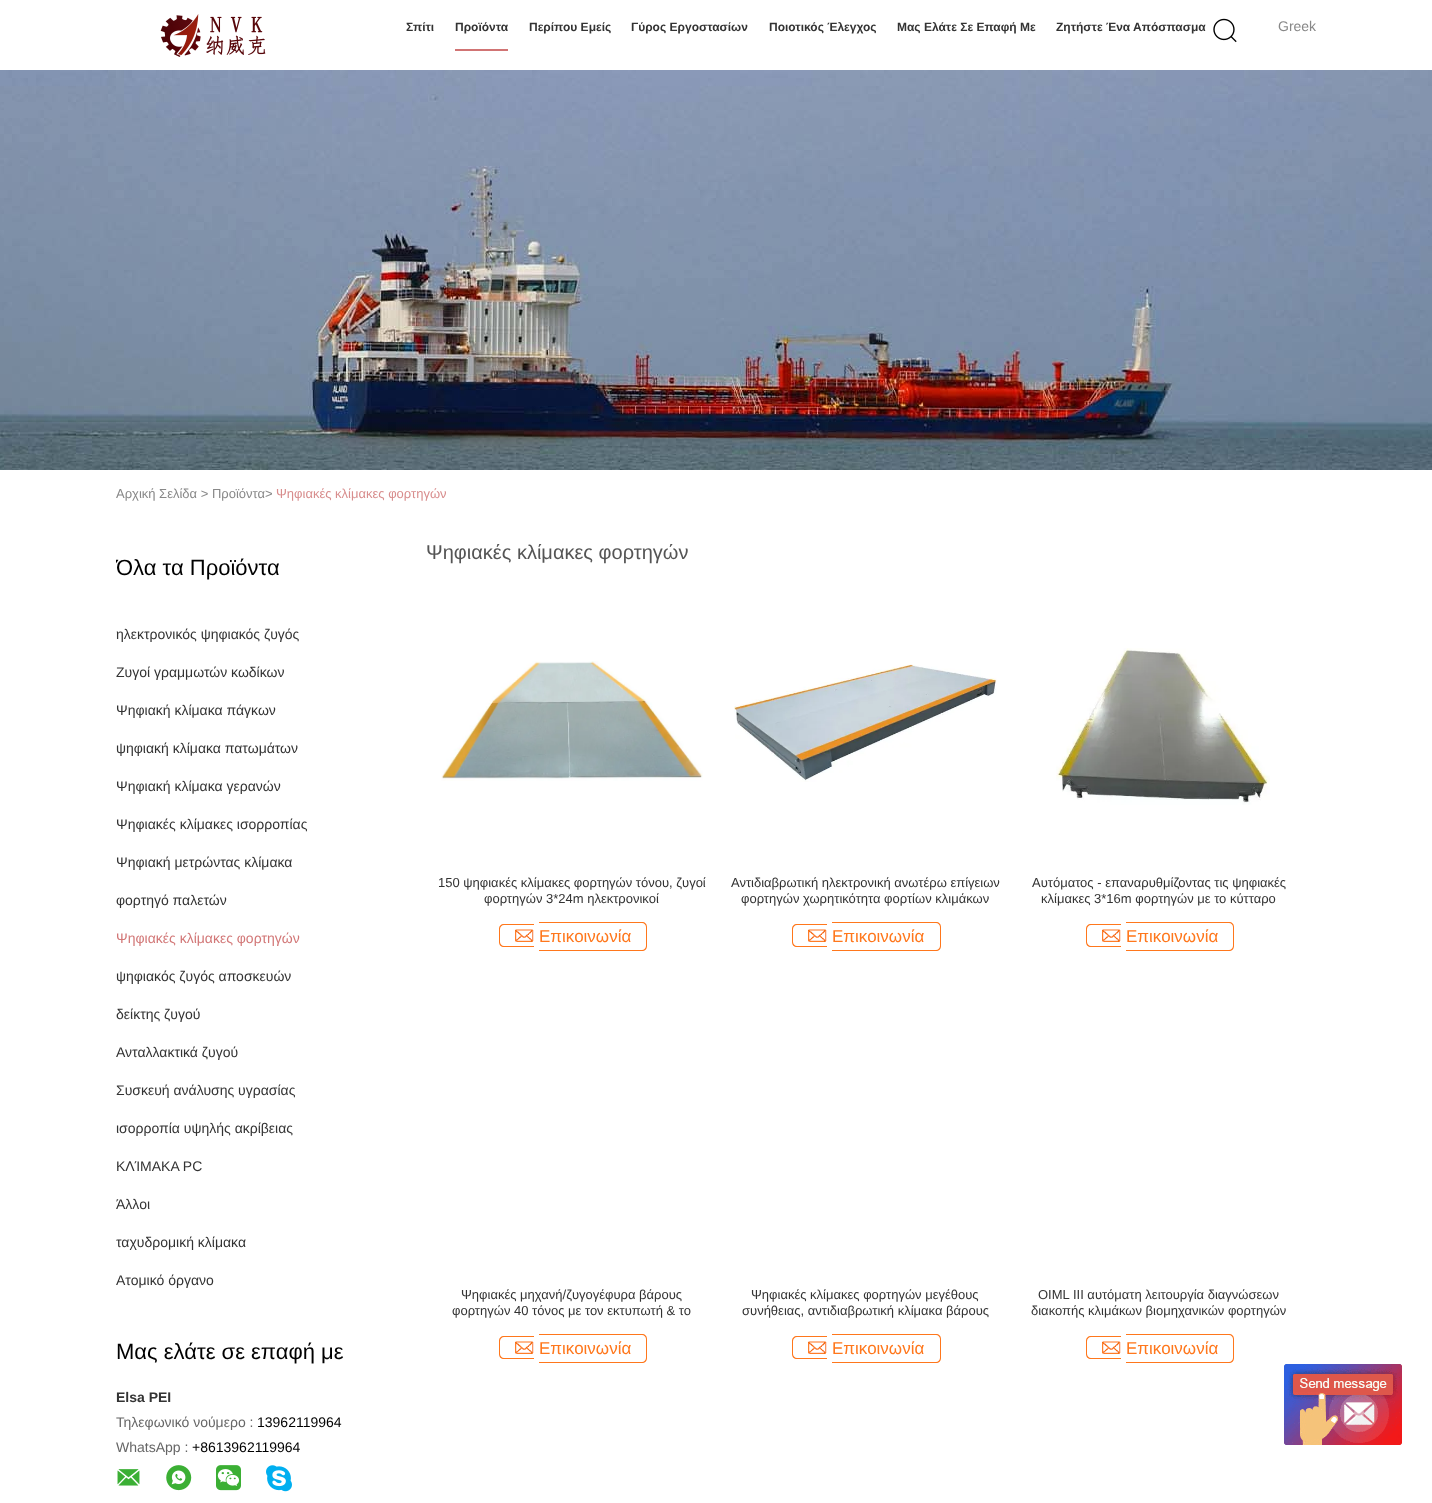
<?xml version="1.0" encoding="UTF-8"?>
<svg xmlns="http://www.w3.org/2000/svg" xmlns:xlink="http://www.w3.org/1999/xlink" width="1432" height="1503">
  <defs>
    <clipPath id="clip1"><rect x="116" y="540" width="260" height="749" /></clipPath>
  </defs>
  <rect width="100%" height="100%" fill="#ffffff" />
  <image x="160" y="14" width="106" height="43" xlink:href="image1.png" />
  <rect x="455" y="49" width="53" height="2" fill="#d17474" />
  <image x="1213" y="18" width="24" height="25" xlink:href="image2.png" />
  <image x="0" y="70" width="1432" height="400" xlink:href="image3.png" />
  <image x="117" y="1469" width="23" height="17" xlink:href="image4.png" />
  <image x="166" y="1465" width="26" height="26" xlink:href="image5.png" />
  <image x="216" y="1465" width="25" height="26" xlink:href="image6.png" />
  <image x="266" y="1465" width="26" height="27" xlink:href="image7.png" />
  <image x="441" y="661" width="262" height="120" xlink:href="image8.png" />
  <path d="M 504 924 h 30 v 23 h -30 c -3 0 -5 -2 -5 -5 v -13 c 0 -3 2 -5 5 -5 z m 0 1 h 30 v 21 h -30 c -2 0 -4 -2 -4 -4 v -13 c 0 -2 2 -4 4 -4 z" fill="#ff771c" fill-rule="evenodd" />
  <path d="M 539 922 h 103 c 3 0 5 2 5 5 v 19 c 0 3 -2 5 -5 5 h -103 z m 0 1 h 103 c 2 0 4 2 4 4 v 19 c 0 2 -2 4 -4 4 h -103 z" fill="#ff771c" fill-rule="evenodd" />
  <image x="515" y="929" width="19" height="13" xlink:href="image9.png" />
  <image x="734" y="664" width="263" height="118" xlink:href="image10.png" />
  <path d="M 797 924 h 30 v 23 h -30 c -3 0 -5 -2 -5 -5 v -13 c 0 -3 2 -5 5 -5 z m 0 1 h 30 v 21 h -30 c -2 0 -4 -2 -4 -4 v -13 c 0 -2 2 -4 4 -4 z" fill="#ff771c" fill-rule="evenodd" />
  <path d="M 832 922 h 104 c 3 0 5 2 5 5 v 19 c 0 3 -2 5 -5 5 h -104 z m 0 1 h 104 c 2 0 4 2 4 4 v 19 c 0 2 -2 4 -4 4 h -104 z" fill="#ff771c" fill-rule="evenodd" />
  <image x="808" y="929" width="19" height="13" xlink:href="image9.png" />
  <image x="1056" y="648" width="214" height="157" xlink:href="image11.png" />
  <path d="M 1091 924 h 30 v 23 h -30 c -3 0 -5 -2 -5 -5 v -13 c 0 -3 2 -5 5 -5 z m 0 1 h 30 v 21 h -30 c -2 0 -4 -2 -4 -4 v -13 c 0 -2 2 -4 4 -4 z" fill="#ff771c" fill-rule="evenodd" />
  <path d="M 1126 922 h 103 c 3 0 5 2 5 5 v 19 c 0 3 -2 5 -5 5 h -103 z m 0 1 h 103 c 2 0 4 2 4 4 v 19 c 0 2 -2 4 -4 4 h -103 z" fill="#ff771c" fill-rule="evenodd" />
  <image x="1102" y="929" width="19" height="13" xlink:href="image9.png" />
  <path d="M 504 1336 h 30 v 23 h -30 c -3 0 -5 -2 -5 -5 v -13 c 0 -3 2 -5 5 -5 z m 0 1 h 30 v 21 h -30 c -2 0 -4 -2 -4 -4 v -13 c 0 -2 2 -4 4 -4 z" fill="#ff771c" fill-rule="evenodd" />
  <path d="M 539 1334 h 103 c 3 0 5 2 5 5 v 19 c 0 3 -2 5 -5 5 h -103 z m 0 1 h 103 c 2 0 4 2 4 4 v 19 c 0 2 -2 4 -4 4 h -103 z" fill="#ff771c" fill-rule="evenodd" />
  <image x="515" y="1341" width="19" height="13" xlink:href="image9.png" />
  <path d="M 797 1336 h 30 v 23 h -30 c -3 0 -5 -2 -5 -5 v -13 c 0 -3 2 -5 5 -5 z m 0 1 h 30 v 21 h -30 c -2 0 -4 -2 -4 -4 v -13 c 0 -2 2 -4 4 -4 z" fill="#ff771c" fill-rule="evenodd" />
  <path d="M 832 1334 h 104 c 3 0 5 2 5 5 v 19 c 0 3 -2 5 -5 5 h -104 z m 0 1 h 104 c 2 0 4 2 4 4 v 19 c 0 2 -2 4 -4 4 h -104 z" fill="#ff771c" fill-rule="evenodd" />
  <image x="808" y="1341" width="19" height="13" xlink:href="image9.png" />
  <path d="M 1091 1336 h 30 v 23 h -30 c -3 0 -5 -2 -5 -5 v -13 c 0 -3 2 -5 5 -5 z m 0 1 h 30 v 21 h -30 c -2 0 -4 -2 -4 -4 v -13 c 0 -2 2 -4 4 -4 z" fill="#ff771c" fill-rule="evenodd" />
  <path d="M 1126 1334 h 103 c 3 0 5 2 5 5 v 19 c 0 3 -2 5 -5 5 h -103 z m 0 1 h 103 c 2 0 4 2 4 4 v 19 c 0 2 -2 4 -4 4 h -103 z" fill="#ff771c" fill-rule="evenodd" />
  <image x="1102" y="1341" width="19" height="13" xlink:href="image9.png" />
  <image x="1284" y="1364" width="118" height="81" xlink:href="image12.png" />
  <text x="406" y="31" style="font-family: Liberation Sans; font-size: 12px; font-weight: bold; fill: #333333">Σπίτι</text>
  <text x="455" y="31" style="font-family: Liberation Sans; font-size: 12px; font-weight: bold; fill: #333333">Προϊόντα</text>
  <text x="529" y="31" style="font-family: Liberation Sans; font-size: 12px; font-weight: bold; fill: #333333">Περίπου Εμείς</text>
  <text x="631" y="31" style="font-family: Liberation Sans; font-size: 12px; font-weight: bold; fill: #333333">Γύρος Εργοστασίων</text>
  <text x="769" y="31" style="font-family: Liberation Sans; font-size: 12px; font-weight: bold; fill: #333333">Ποιοτικός Έλεγχος</text>
  <text x="897" y="31" style="font-family: Liberation Sans; font-size: 12px; font-weight: bold; fill: #333333">Μας Ελάτε Σε Επαφή Με</text>
  <text x="1056" y="31" style="font-family: Liberation Sans; font-size: 12px; font-weight: bold; fill: #333333">Ζητήστε Ένα Απόσπασμα</text>
  <text x="1278" y="31" style="font-family: Liberation Sans; font-size: 14px; fill: #888888">Greek</text>
  <text x="116" y="498" style="font-family: Liberation Sans; font-size: 13px; fill: #888888">Αρχική Σελίδα &gt; Προϊόντα&gt;</text>
  <text x="276" y="498" style="font-family: Liberation Sans; font-size: 13px; fill: #d88d8d">Ψηφιακές κλίμακες φορτηγών</text>
  <g clip-path="url(#clip1)">
    <text x="116" y="575" style="font-family: Liberation Sans; font-size: 22px; fill: #000000">Όλα τα Προϊόντα</text>
  </g>
  <text x="116" y="639" style="font-family: Liberation Sans; font-size: 14px; fill: #333333">ηλεκτρονικός ψηφιακός ζυγός</text>
  <text x="116" y="677" style="font-family: Liberation Sans; font-size: 14px; fill: #333333">Ζυγοί γραμμωτών κωδίκων</text>
  <text x="116" y="715" style="font-family: Liberation Sans; font-size: 14px; fill: #333333">Ψηφιακή κλίμακα πάγκων</text>
  <text x="116" y="753" style="font-family: Liberation Sans; font-size: 14px; fill: #333333">ψηφιακή κλίμακα πατωμάτων</text>
  <text x="116" y="791" style="font-family: Liberation Sans; font-size: 14px; fill: #333333">Ψηφιακή κλίμακα γερανών</text>
  <text x="116" y="829" style="font-family: Liberation Sans; font-size: 14px; fill: #333333">Ψηφιακές κλίμακες ισορροπίας</text>
  <text x="116" y="867" style="font-family: Liberation Sans; font-size: 14px; fill: #333333">Ψηφιακή μετρώντας κλίμακα</text>
  <text x="116" y="905" style="font-family: Liberation Sans; font-size: 14px; fill: #333333">φορτηγό παλετών</text>
  <text x="116" y="943" style="font-family: Liberation Sans; font-size: 14px; fill: #d27777">Ψηφιακές κλίμακες φορτηγών</text>
  <text x="116" y="981" style="font-family: Liberation Sans; font-size: 14px; fill: #333333">ψηφιακός ζυγός αποσκευών</text>
  <text x="116" y="1019" style="font-family: Liberation Sans; font-size: 14px; fill: #333333">δείκτης ζυγού</text>
  <text x="116" y="1057" style="font-family: Liberation Sans; font-size: 14px; fill: #333333">Ανταλλακτικά ζυγού</text>
  <text x="116" y="1095" style="font-family: Liberation Sans; font-size: 14px; fill: #333333">Συσκευή ανάλυσης υγρασίας</text>
  <text x="116" y="1133" style="font-family: Liberation Sans; font-size: 14px; fill: #333333">ισορροπία υψηλής ακρίβειας</text>
  <text x="116" y="1171" style="font-family: Liberation Sans; font-size: 14px; fill: #333333">ΚΛΊΜΑΚΑ PC</text>
  <text x="116" y="1209" style="font-family: Liberation Sans; font-size: 14px; fill: #333333">Άλλοι</text>
  <text x="116" y="1247" style="font-family: Liberation Sans; font-size: 14px; fill: #333333">ταχυδρομική κλίμακα</text>
  <text x="116" y="1285" style="font-family: Liberation Sans; font-size: 14px; fill: #333333">Ατομικό όργανο</text>
  <text x="116" y="1359" style="font-family: Liberation Sans; font-size: 22px; fill: #000000">Μας ελάτε σε επαφή με</text>
  <text x="116" y="1402" style="font-family: Liberation Sans; font-size: 14px; font-weight: bold; fill: #333333">Elsa PEI</text>
  <text x="116" y="1427" style="font-family: Liberation Sans; font-size: 14px; fill: #666666">Τηλεφωνικό νούμερο :</text>
  <text x="257" y="1427" style="font-family: Liberation Sans; font-size: 14px; fill: #000000">13962119964</text>
  <text x="116" y="1452" style="font-family: Liberation Sans; font-size: 14px; fill: #666666">WhatsApp :</text>
  <text x="192" y="1452" style="font-family: Liberation Sans; font-size: 14px; fill: #000000">+8613962119964</text>
  <text x="426" y="559" style="font-family: Liberation Sans; font-size: 20px; fill: #555555">Ψηφιακές κλίμακες φορτηγών</text>
  <text x="438" y="887" style="font-family: Liberation Sans; font-size: 13px; fill: #333333">150 ψηφιακές κλίμακες φορτηγών τόνου, ζυγοί</text>
  <text x="484" y="903" style="font-family: Liberation Sans; font-size: 13px; fill: #333333">φορτηγών 3*24m ηλεκτρονικοί</text>
  <text x="539" y="942" style="font-family: Liberation Sans; font-size: 17px; fill: #ff771c">Επικοινωνία</text>
  <text x="731" y="887" style="font-family: Liberation Sans; font-size: 13px; fill: #333333">Αντιδιαβρωτική ηλεκτρονική ανωτέρω επίγειων</text>
  <text x="741" y="903" style="font-family: Liberation Sans; font-size: 13px; fill: #333333">φορτηγών χωρητικότητα φορτίων κλιμάκων</text>
  <text x="832" y="942" style="font-family: Liberation Sans; font-size: 17px; fill: #ff771c">Επικοινωνία</text>
  <text x="1032" y="887" style="font-family: Liberation Sans; font-size: 13px; fill: #333333">Αυτόματος - επαναρυθμίζοντας τις ψηφιακές</text>
  <text x="1041" y="903" style="font-family: Liberation Sans; font-size: 13px; fill: #333333">κλίμακες 3*16m φορτηγών με το κύτταρο</text>
  <text x="1126" y="942" style="font-family: Liberation Sans; font-size: 17px; fill: #ff771c">Επικοινωνία</text>
  <text x="461" y="1299" style="font-family: Liberation Sans; font-size: 13px; fill: #333333">Ψηφιακές μηχανή/ζυγογέφυρα βάρους</text>
  <text x="452" y="1315" style="font-family: Liberation Sans; font-size: 13px; fill: #333333">φορτηγών 40 τόνος με τον εκτυπωτή &amp; το</text>
  <text x="539" y="1354" style="font-family: Liberation Sans; font-size: 17px; fill: #ff771c">Επικοινωνία</text>
  <text x="751" y="1299" style="font-family: Liberation Sans; font-size: 13px; fill: #333333">Ψηφιακές κλίμακες φορτηγών μεγέθους</text>
  <text x="742" y="1315" style="font-family: Liberation Sans; font-size: 13px; fill: #333333">συνήθειας, αντιδιαβρωτική κλίμακα βάρους</text>
  <text x="832" y="1354" style="font-family: Liberation Sans; font-size: 17px; fill: #ff771c">Επικοινωνία</text>
  <text x="1038" y="1299" style="font-family: Liberation Sans; font-size: 13px; fill: #333333">OIML ΙΙΙ αυτόματη λειτουργία διαγνώσεων</text>
  <text x="1031" y="1315" style="font-family: Liberation Sans; font-size: 13px; fill: #333333">διακοπής κλιμάκων βιομηχανικών φορτηγών</text>
  <text x="1126" y="1354" style="font-family: Liberation Sans; font-size: 17px; fill: #ff771c">Επικοινωνία</text>
</svg>
